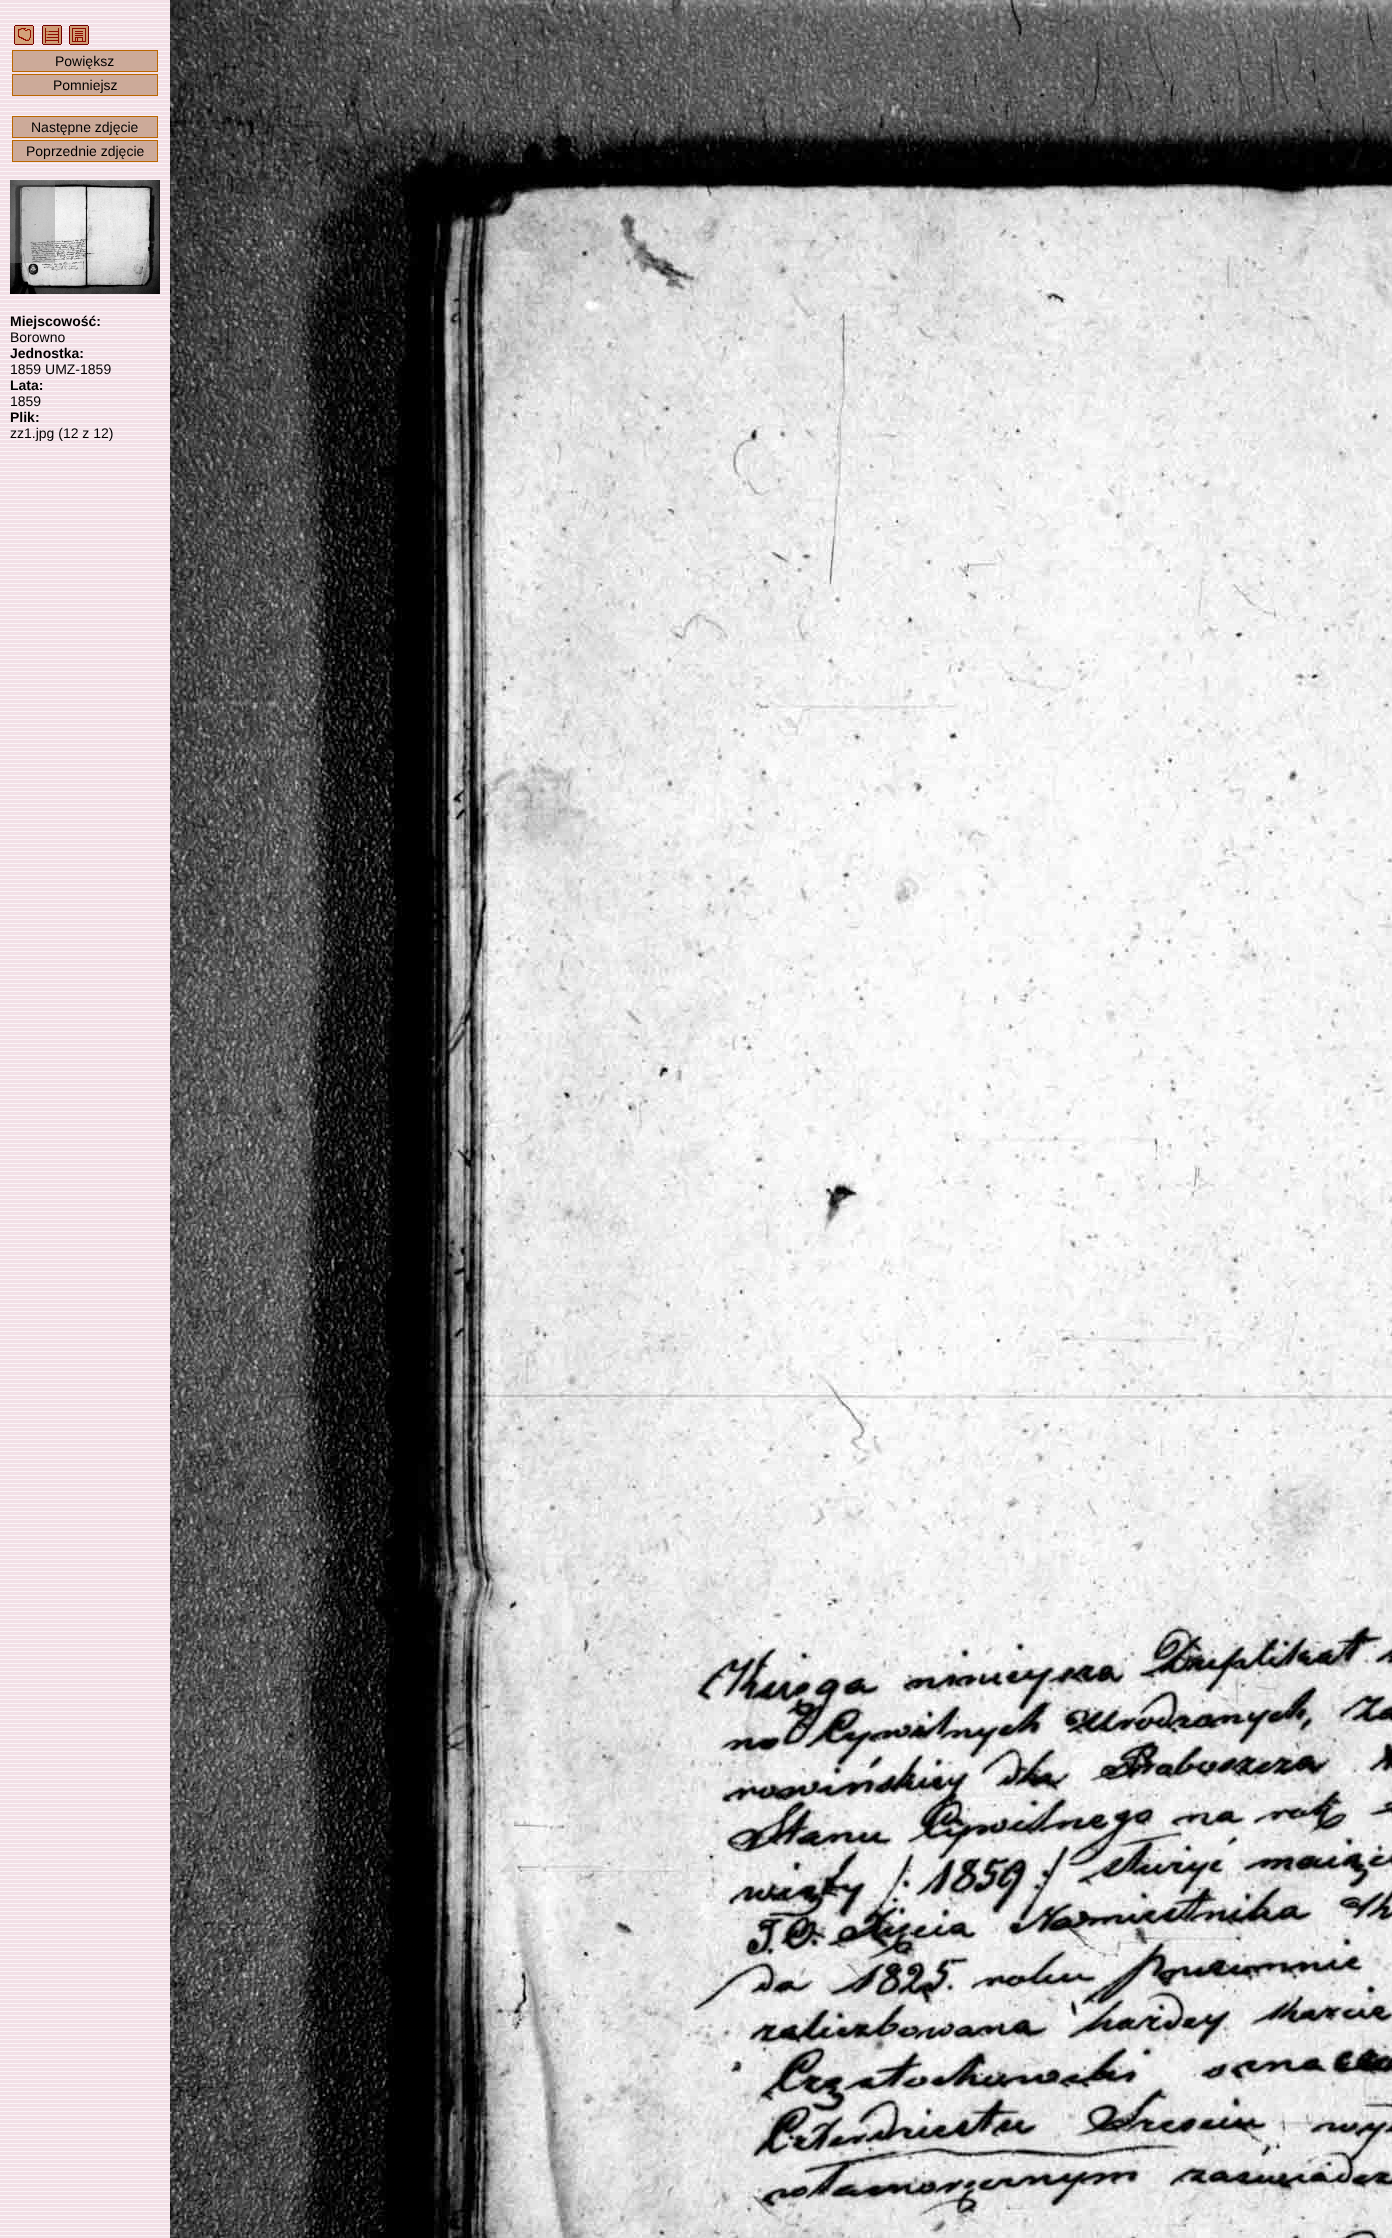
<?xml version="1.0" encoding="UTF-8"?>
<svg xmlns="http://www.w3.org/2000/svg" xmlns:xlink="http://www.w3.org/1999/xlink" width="1392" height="2238">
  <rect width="100%" height="100%" fill="#ffffff" />
  <image x="0" y="0" width="170" height="2238" xlink:href="image1.png" />
  <image x="14" y="25" width="20" height="20" xlink:href="image2.png" />
  <image x="42" y="25" width="20" height="20" xlink:href="image3.png" />
  <image x="69" y="25" width="20" height="20" xlink:href="image4.png" />
  <rect x="12.5" y="50.5" width="145" height="21" fill="#ccaa99" stroke="#bb6600" />
  <rect x="12.5" y="74.5" width="145" height="21" fill="#ccaa99" stroke="#bb6600" />
  <rect x="12.5" y="116.5" width="145" height="21" fill="#ccaa99" stroke="#bb6600" />
  <rect x="12.5" y="140.5" width="145" height="21" fill="#ccaa99" stroke="#bb6600" />
  <image x="10" y="180" width="150" height="114" xlink:href="image5.png" />
  <image x="170" y="0" width="1222" height="2238" xlink:href="image6.png" />
  <text x="55" y="66" style="font-family: Liberation Sans; font-size: 14px; fill: #000000">Powiększ</text>
  <text x="53" y="90" style="font-family: Liberation Sans; font-size: 14px; fill: #000000">Pomniejsz</text>
  <text x="31" y="132" style="font-family: Liberation Sans; font-size: 14px; fill: #000000">Następne zdjęcie</text>
  <text x="26" y="156" style="font-family: Liberation Sans; font-size: 14px; fill: #000000">Poprzednie zdjęcie</text>
  <text x="10" y="326" style="font-family: Liberation Sans; font-size: 14px; font-weight: bold; fill: #000000">Miejscowość:</text>
  <text x="10" y="342" style="font-family: Liberation Sans; font-size: 14px; fill: #000000">Borowno</text>
  <text x="10" y="358" style="font-family: Liberation Sans; font-size: 14px; font-weight: bold; fill: #000000">Jednostka:</text>
  <text x="10" y="374" style="font-family: Liberation Sans; font-size: 14px; fill: #000000">1859 UMZ-1859</text>
  <text x="10" y="390" style="font-family: Liberation Sans; font-size: 14px; font-weight: bold; fill: #000000">Lata:</text>
  <text x="10" y="406" style="font-family: Liberation Sans; font-size: 14px; fill: #000000">1859</text>
  <text x="10" y="422" style="font-family: Liberation Sans; font-size: 14px; font-weight: bold; fill: #000000">Plik:</text>
  <text x="10" y="438" style="font-family: Liberation Sans; font-size: 14px; fill: #000000">zz1.jpg (12 z 12)</text>
</svg>
